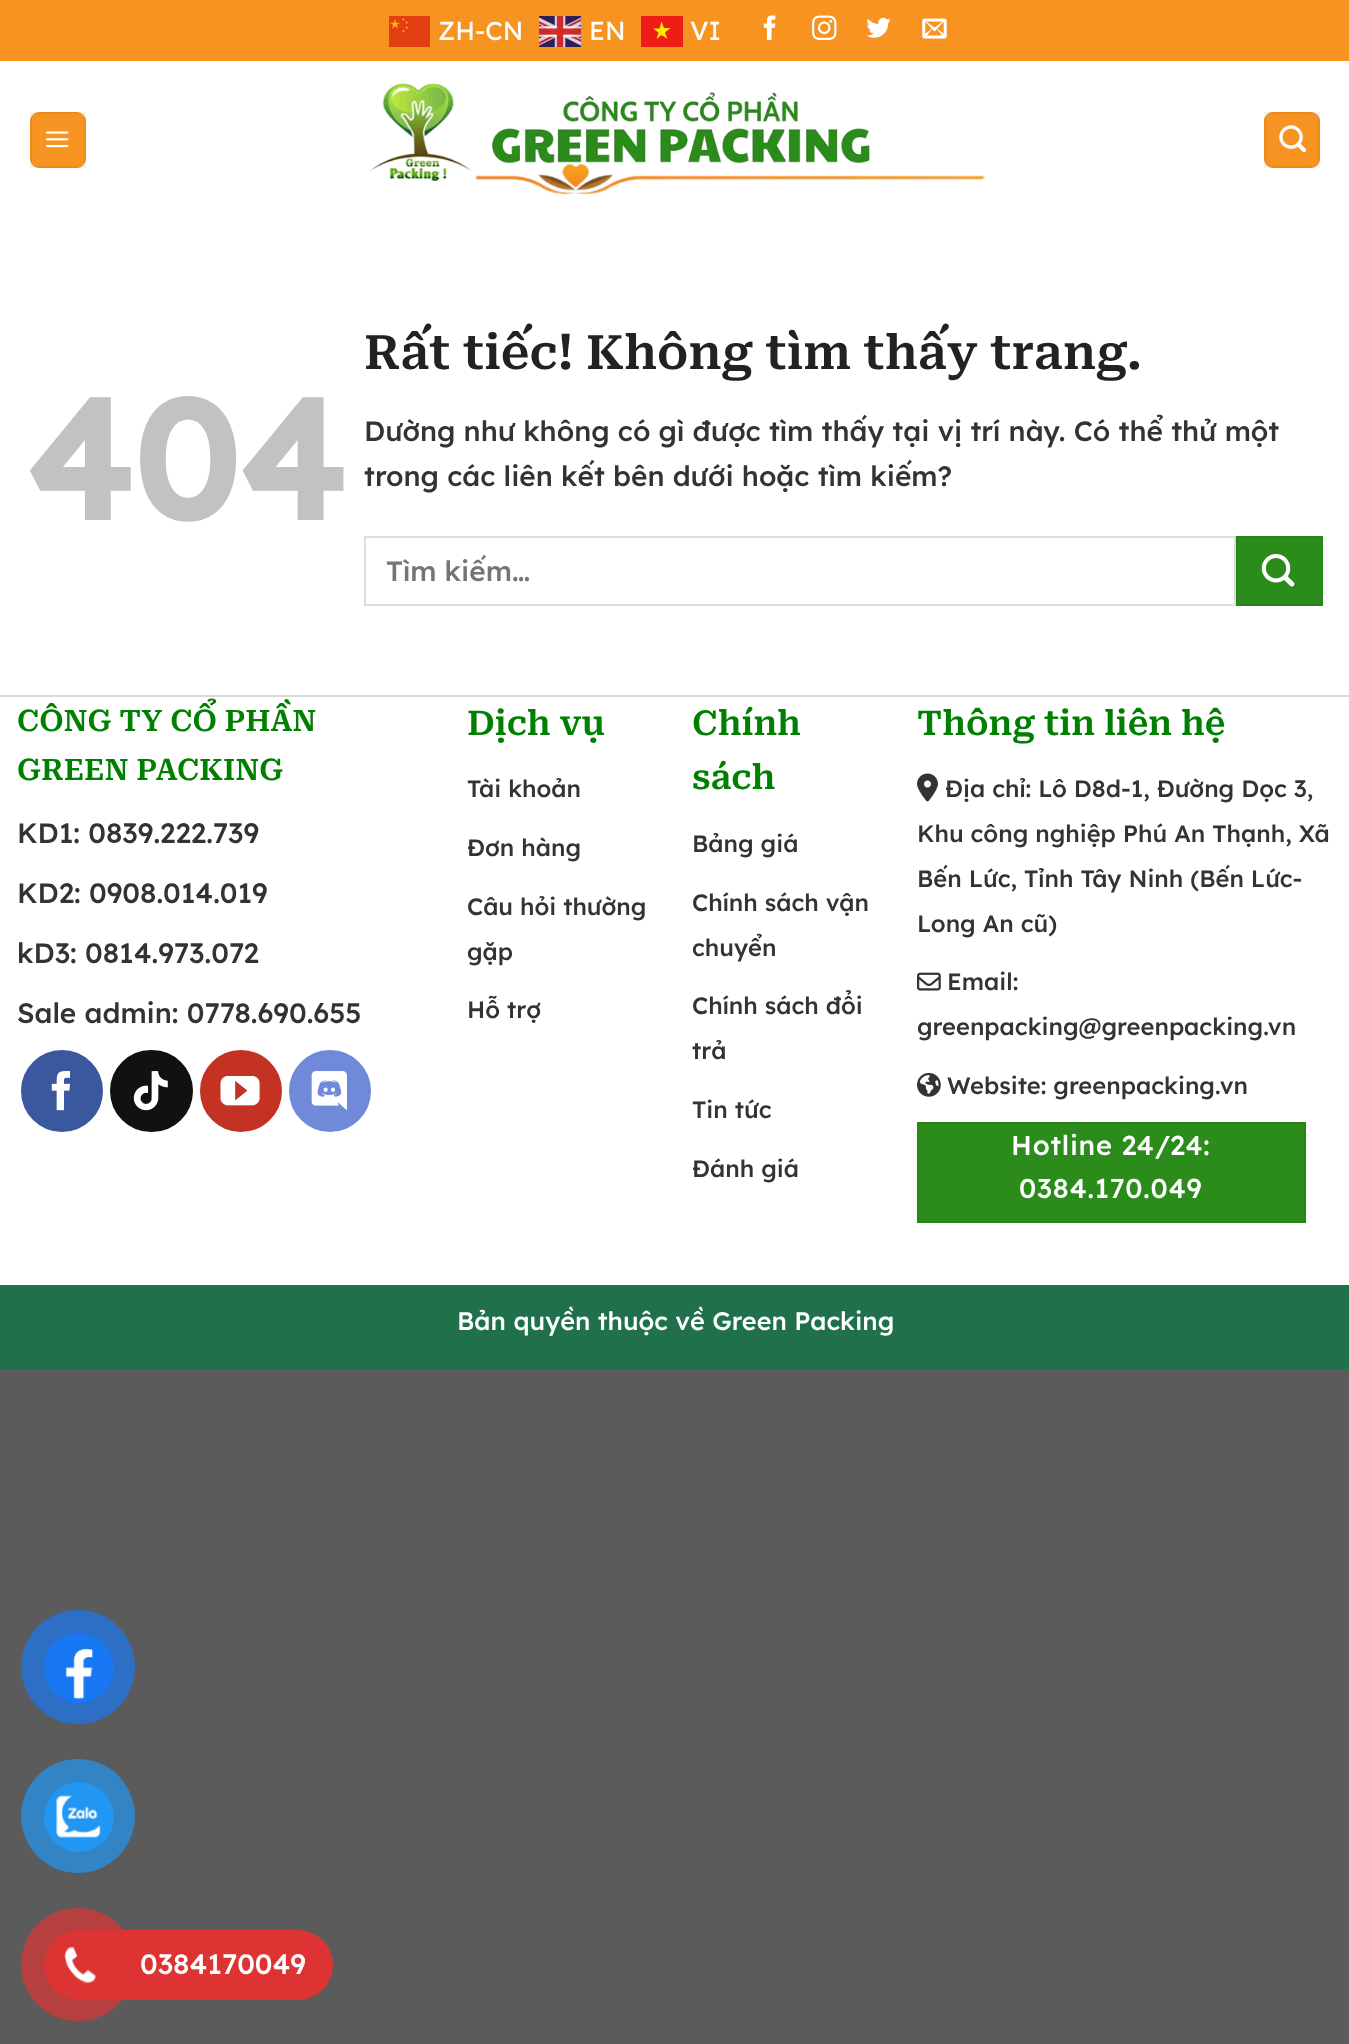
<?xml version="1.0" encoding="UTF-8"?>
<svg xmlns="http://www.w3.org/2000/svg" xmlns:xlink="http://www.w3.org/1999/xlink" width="1349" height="2044">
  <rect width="100%" height="100%" fill="#5b5b5b" />
  <rect y="61" width="1349" height="1224" fill="#ffffff" />
  <rect width="1349" height="61" fill="#f79320" />
  <image x="389" y="16" width="41" height="31" xlink:href="image1.png" />
  <image x="539" y="16" width="42" height="31" xlink:href="image2.png" />
  <rect x="641" y="16" width="42" height="31" fill="#ee1d17" />
  <path d="M 667.5 39 l -6 -4 l -5 4 l 2 -6.5 l -5.5 -4 h 6.5 l 2 -7 l 2.5 6.5 h 6.5 l -5.5 4.5 z" fill="#fde906" fill-rule="evenodd" />
  <image x="763" y="15" width="13" height="25" xlink:href="image3.png" />
  <image x="812" y="15" width="25" height="25" xlink:href="image4.png" />
  <image x="866" y="17" width="25" height="21" xlink:href="image5.png" />
  <image x="922" y="18" width="25" height="21" xlink:href="image6.png" />
  <rect x="30" y="112" width="56" height="56" rx="9" fill="#f79320" />
  <rect x="31" y="113" width="54" height="54" fill="none" stroke="#000000" stroke-opacity="0.05" stroke-width="2" />
  <image x="46" y="131" width="23" height="17" xlink:href="image7.png" />
  <image x="369" y="83" width="617" height="112" xlink:href="image8.png" />
  <rect x="1264" y="112" width="56" height="56" rx="9" fill="#f79320" />
  <rect x="1265" y="113" width="54" height="54" fill="none" stroke="#000000" stroke-opacity="0.05" stroke-width="2" />
  <image x="1279" y="125" width="28" height="28" xlink:href="image9.png" />
  <rect x="365" y="537" width="870" height="68" fill="none" stroke="#dddddd" stroke-width="2" />
  <rect x="1237" y="537" width="85" height="68" fill="#2b8b1b" stroke="#29841a" stroke-width="2" />
  <image x="1261" y="554" width="34" height="33" xlink:href="image10.png" />
  <rect y="695" width="1349" height="2" fill="#d9d9d9" />
  <circle cx="62" cy="1091" r="40" fill="#3a589d" stroke="#3a589d" stroke-width="2" />
  <image x="51" y="1071" width="20" height="40" xlink:href="image11.png" />
  <rect x="111" y="1051" width="81" height="80" rx="40" fill="#111111" stroke="#111111" stroke-width="2" />
  <image x="133" y="1071" width="35" height="40" xlink:href="image12.png" />
  <circle cx="241" cy="1091" r="40" fill="#c33223" stroke="#c33223" stroke-width="2" />
  <image x="220" y="1076" width="40" height="30" xlink:href="image13.png" />
  <circle cx="330" cy="1091" r="40" fill="#7189d9" stroke="#7189d9" stroke-width="2" />
  <image x="311" y="1071" width="36" height="39" xlink:href="image14.png" />
  <image x="917" y="773" width="21" height="29" xlink:href="image15.png" />
  <image x="917" y="972" width="24" height="19" xlink:href="image16.png" />
  <image x="917" y="1072" width="24" height="25" xlink:href="image17.png" />
  <rect x="918" y="1123" width="387" height="99" fill="#2b8b1b" stroke="#29841a" stroke-width="2" />
  <rect y="1285" width="1349" height="84" fill="#20704c" />
  <circle cx="78" cy="1667" r="57" fill="#2c6fc5" />
  <circle cx="79" cy="1668" r="35" fill="#1877f2" />
  <image x="65" y="1648" width="29" height="52" xlink:href="image18.png" />
  <circle cx="78" cy="1816" r="57" fill="#3284c5" />
  <circle cx="79" cy="1817" r="35" fill="#2196f3" />
  <image x="56" y="1795" width="45" height="43" xlink:href="image19.png" />
  <rect x="53" y="1930" width="280" height="70" rx="35" fill="#dd3333" />
  <rect x="21" y="1908" width="114" height="113" rx="56.5" fill="#dd3333" fill-opacity="0.7" />
  <circle cx="79" cy="1965" r="35" fill="#dd3333" />
  <image x="64" y="1946" width="32" height="38" xlink:href="image20.png" />
  <text x="438" y="40" style="font-family: Lexend Deca; font-size: 26px; fill: #ffffff">ZH-CN</text>
  <text x="589" y="40" style="font-family: Lexend Deca; font-size: 26px; fill: #ffffff">EN</text>
  <text x="690" y="40" style="font-family: Lexend Deca; font-size: 26px; fill: #ffffff">VI</text>
  <text x="26" y="520" style="font-family: Lexend Deca; font-size: 168px; font-weight: bold; fill: #c2c2c2">404</text>
  <text x="364" y="369" style="font-family: Roboto Serif; font-size: 47.6px; font-weight: 600; fill: #222222">Rất tiếc! Không tìm thấy trang.</text>
  <text x="364" y="441" style="font-family: Lexend Deca; font-size: 28px; font-weight: 500; fill: #333333">Dường như không có gì được tìm thấy tại vị trí này. Có thể thử một</text>
  <text x="364" y="486" style="font-family: Lexend Deca; font-size: 28px; font-weight: 500; fill: #333333">trong các liên kết bên dưới hoặc tìm kiếm?</text>
  <text x="386" y="581" style="font-family: Lexend Deca; font-size: 28px; font-weight: 500; fill: #757575">Tìm kiếm…</text>
  <text x="17" y="731" style="font-family: Roboto Serif; font-size: 29.75px; font-weight: 600; fill: #008000">CÔNG TY CỔ PHẦN</text>
  <text x="17" y="780" style="font-family: Roboto Serif; font-size: 29.75px; font-weight: 600; fill: #008000">GREEN PACKING</text>
  <text x="17" y="843" style="font-family: Lexend Deca; font-size: 28px; font-weight: 500; fill: #333333">KD1: 0839.222.739</text>
  <text x="17" y="903" style="font-family: Lexend Deca; font-size: 28px; font-weight: 500; fill: #333333">KD2: 0908.014.019</text>
  <text x="17" y="963" style="font-family: Lexend Deca; font-size: 28px; font-weight: 500; fill: #333333">kD3: 0814.973.072</text>
  <text x="17" y="1023" style="font-family: Lexend Deca; font-size: 28px; font-weight: 500; fill: #333333">Sale admin: 0778.690.655</text>
  <text x="467" y="735" style="font-family: Roboto Serif; font-size: 34.25px; font-weight: 600; fill: #008000">Dịch vụ</text>
  <text x="467" y="797" style="font-family: Lexend Deca; font-size: 23.75px; font-weight: 500; fill: #333333">Tài khoản</text>
  <text x="467" y="856" style="font-family: Lexend Deca; font-size: 23.75px; font-weight: 500; fill: #333333">Đơn hàng</text>
  <text x="467" y="915" style="font-family: Lexend Deca; font-size: 23.75px; font-weight: 500; fill: #333333">Câu hỏi thường</text>
  <text x="467" y="960" style="font-family: Lexend Deca; font-size: 23.75px; font-weight: 500; fill: #333333">gặp</text>
  <text x="467" y="1018" style="font-family: Lexend Deca; font-size: 23.75px; font-weight: 500; fill: #333333">Hỗ trợ</text>
  <text x="692" y="735" style="font-family: Roboto Serif; font-size: 34.25px; font-weight: 600; fill: #008000">Chính</text>
  <text x="692" y="789" style="font-family: Roboto Serif; font-size: 34.25px; font-weight: 600; fill: #008000">sách</text>
  <text x="692" y="852" style="font-family: Lexend Deca; font-size: 23.75px; font-weight: 500; fill: #333333">Bảng giá</text>
  <text x="692" y="911" style="font-family: Lexend Deca; font-size: 23.75px; font-weight: 500; fill: #333333">Chính sách vận</text>
  <text x="692" y="956" style="font-family: Lexend Deca; font-size: 23.75px; font-weight: 500; fill: #333333">chuyển</text>
  <text x="692" y="1014" style="font-family: Lexend Deca; font-size: 23.75px; font-weight: 500; fill: #333333">Chính sách đổi</text>
  <text x="692" y="1059" style="font-family: Lexend Deca; font-size: 23.75px; font-weight: 500; fill: #333333">trả</text>
  <text x="692" y="1118" style="font-family: Lexend Deca; font-size: 23.75px; font-weight: 500; fill: #333333">Tin tức</text>
  <text x="692" y="1177" style="font-family: Lexend Deca; font-size: 23.75px; font-weight: 500; fill: #333333">Đánh giá</text>
  <text x="917" y="735" style="font-family: Roboto Serif; font-size: 34.25px; font-weight: 600; fill: #008000">Thông tin liên hệ</text>
  <text x="945" y="797" style="font-family: Lexend Deca; font-size: 23.75px; font-weight: 500; fill: #333333">Địa chỉ: Lô D8d-1, Đường Dọc 3,</text>
  <text x="917" y="842" style="font-family: Lexend Deca; font-size: 23.75px; font-weight: 500; fill: #333333">Khu công nghiệp Phú An Thạnh, Xã</text>
  <text x="917" y="887" style="font-family: Lexend Deca; font-size: 23.75px; font-weight: 500; fill: #333333">Bến Lức, Tỉnh Tây Ninh (Bến Lức-</text>
  <text x="917" y="932" style="font-family: Lexend Deca; font-size: 23.75px; font-weight: 500; fill: #333333">Long An cũ)</text>
  <text x="947" y="990" style="font-family: Lexend Deca; font-size: 23.75px; font-weight: 500; fill: #333333">Email:</text>
  <text x="917" y="1035" style="font-family: Lexend Deca; font-size: 23.75px; font-weight: 500; fill: #333333">greenpacking@greenpacking.vn</text>
  <text x="947" y="1094" style="font-family: Lexend Deca; font-size: 23.75px; font-weight: 500; fill: #333333">Website: greenpacking.vn</text>
  <text x="1011" y="1155" style="font-family: Lexend Deca; font-size: 27.25px; font-weight: 500; letter-spacing: 0.75px; fill: #ffffff">Hotline 24/24:</text>
  <text x="1019" y="1198" style="font-family: Lexend Deca; font-size: 27.25px; font-weight: 500; letter-spacing: 0.75px; fill: #ffffff">0384.170.049</text>
  <text x="457" y="1330" style="font-family: Lexend Deca; font-size: 25.25px; font-weight: 500; fill: #ffffff">Bản quyền thuộc về Green Packing</text>
  <text x="140" y="1974" style="font-family: Lexend Deca; font-size: 28px; font-weight: 500; fill: #ffffff">0384170049</text>
</svg>
